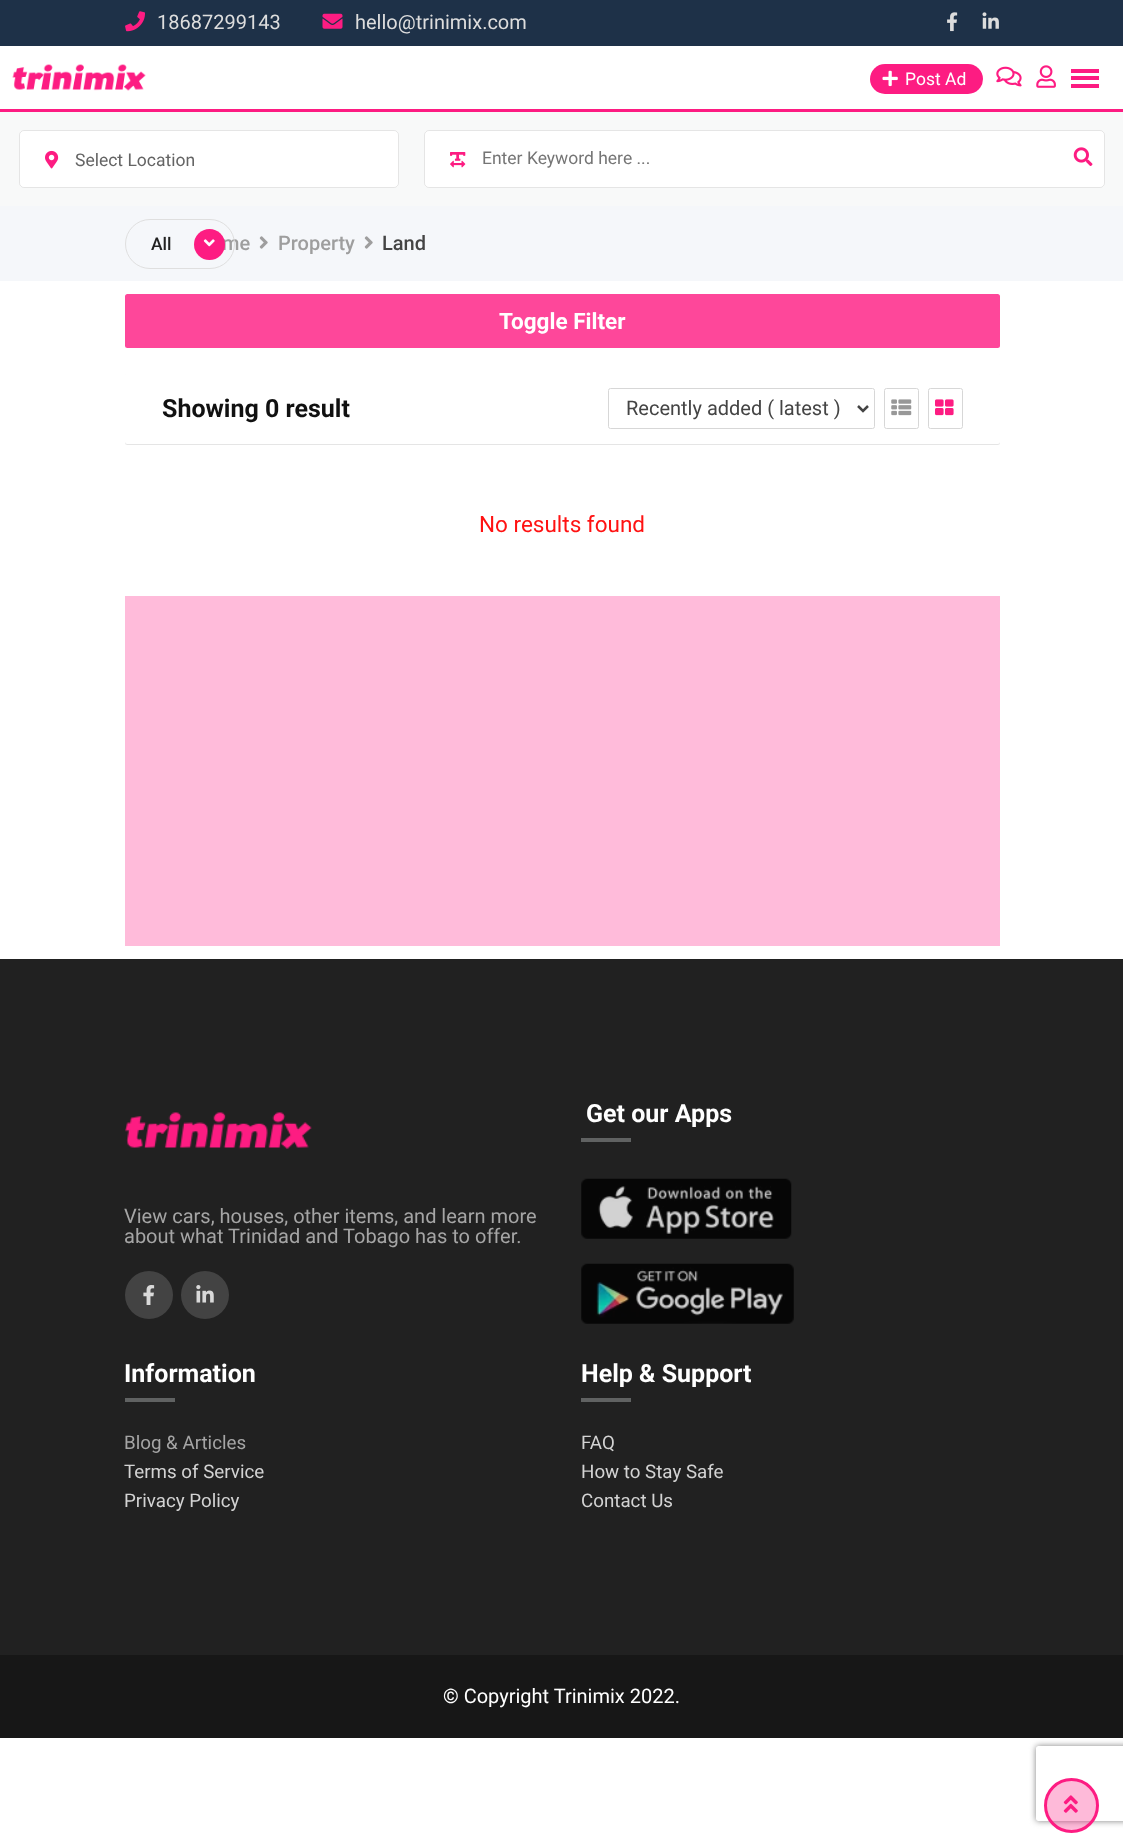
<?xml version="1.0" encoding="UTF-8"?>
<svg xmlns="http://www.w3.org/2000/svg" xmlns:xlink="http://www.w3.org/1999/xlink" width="1123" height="1838">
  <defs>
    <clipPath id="clip1"><path d="M 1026 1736 h 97 v 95 h -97 z m 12.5 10 h 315 c 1.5 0 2.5 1 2.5 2.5 v 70 c 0 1.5 -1 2.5 -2.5 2.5 h -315 c -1.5 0 -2.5 -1 -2.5 -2.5 v -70 c 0 -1.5 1 -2.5 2.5 -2.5 z" clip-rule="evenodd" /></clipPath>
  </defs>
  <rect width="100%" height="100%" fill="#ffffff" />
  <rect width="1123" height="46" fill="#1e3148" />
  <image x="125" y="11" width="20" height="21" xlink:href="image1.png" />
  <image x="322" y="13" width="21" height="16" xlink:href="image2.png" />
  <image x="947" y="12" width="11" height="20" xlink:href="image3.png" />
  <image x="982" y="12" width="17" height="17" xlink:href="image4.png" />
  <rect y="109" width="1123" height="3" fill="#fd1c82" />
  <image x="12" y="64" width="134" height="27" xlink:href="image5.png" />
  <rect x="870" y="64" width="113" height="30" rx="15" fill="#fd1c82" />
  <image x="882" y="70" width="16" height="17" xlink:href="image6.png" />
  <image x="996" y="66" width="26" height="21" xlink:href="image7.png" />
  <image x="1036" y="65" width="20" height="23" xlink:href="image8.png" />
  <rect x="1071" y="69" width="28" height="4" fill="#fd1c82" />
  <rect x="1071" y="76" width="28" height="4" fill="#fd1c82" />
  <rect x="1071" y="84" width="28" height="4" fill="#fd1c82" />
  <rect y="112" width="1123" height="94" fill="#f8f9f9" />
  <rect x="19" y="130" width="380" height="58" rx="5" fill="#ffffff" />
  <rect x="19.5" y="130.5" width="379" height="57" rx="4.5" fill="none" stroke="#000000" stroke-opacity="0.1" />
  <image x="45" y="150" width="14" height="19" xlink:href="image9.png" />
  <rect x="424" y="130" width="681" height="58" rx="5" fill="#ffffff" />
  <rect x="424.5" y="130.5" width="680" height="57" rx="4.5" fill="none" stroke="#000000" stroke-opacity="0.1" />
  <image x="450" y="152" width="16" height="16" xlink:href="image10.png" />
  <image x="1073" y="147" width="20" height="19" xlink:href="image11.png" />
  <rect y="206" width="1123" height="75" fill="#f5f7fa" />
  <image x="259" y="236" width="9" height="13" xlink:href="image13.png" />
  <image x="364" y="236" width="9" height="13" xlink:href="image13.png" />
  <rect x="125" y="294" width="875" height="54" rx="2.5" fill="#fe479a" />
  <rect x="125" y="374" width="875" height="71" rx="2.5" fill="#000000" fill-opacity="0.1" filter="blur(0.5px)" />
  <rect x="125" y="373" width="875" height="71" rx="2.5" fill="#ffffff" />
  <rect x="608.5" y="388.5" width="266" height="40" rx="2" fill="none" stroke="#d7d7d7" />
  <path d="M 858 406 l 5 5 l 5 -5" fill="none" stroke="#444444" stroke-width="2.5" />
  <rect x="884.5" y="388.5" width="34" height="40" rx="2" fill="none" stroke="#d7d7d7" />
  <image x="891" y="399" width="21" height="17" xlink:href="image14.png" />
  <rect x="928.5" y="388.5" width="34" height="40" rx="2" fill="none" stroke="#d7d7d7" />
  <image x="935" y="399" width="19" height="17" xlink:href="image15.png" />
  <rect x="125" y="596" width="875" height="350" fill="#ffbbda" />
  <rect y="959" width="1123" height="696" fill="#212121" />
  <rect x="581" y="1138" width="50" height="4" fill="#606262" />
  <image x="581" y="1178" width="211" height="61" xlink:href="image16.png" />
  <image x="581" y="1263" width="213" height="61" xlink:href="image17.png" />
  <image x="125" y="1112" width="187" height="37" xlink:href="image18.png" />
  <circle cx="149" cy="1295" r="24" fill="#434343" />
  <image x="143" y="1285" width="12" height="20" xlink:href="image19.png" />
  <circle cx="205" cy="1295" r="24" fill="#434343" />
  <image x="196" y="1285" width="18" height="18" xlink:href="image20.png" />
  <rect x="125" y="1398" width="50" height="4" fill="#606262" />
  <rect x="581" y="1398" width="50" height="4" fill="#606262" />
  <rect y="1655" width="1123" height="83" fill="#171717" />
  <g clip-path="url(#clip1)">
    <rect x="1036" y="1746" width="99" height="75" rx="2.5" fill="#808080" filter="blur(3px)" />
  </g>
  <circle cx="1071.5" cy="1805.5" r="26" fill="#fd1c82" fill-opacity="0.3" stroke="#fd1c82" stroke-width="3" />
  <image x="1063" y="1795" width="15" height="18" xlink:href="image21.png" />
  <text x="157" y="29" style="font-family: Roboto; font-size: 20px; fill: #dddddd">18687299143</text>
  <text x="355" y="29" style="font-family: Roboto; font-size: 20px; fill: #dddddd">hello@trinimix.com</text>
  <text x="905" y="85" style="font-family: Roboto; font-size: 17.5px; fill: #ffffff">Post Ad</text>
  <text x="75" y="166" style="font-family: Roboto; font-size: 17.5px; fill: #646464">Select Location</text>
  <text x="482" y="164" style="font-family: Roboto; font-size: 17.5px; fill: #757575">Enter Keyword here ...</text>
  <text x="222" y="250" style="font-family: Roboto; font-size: 20px; font-weight: 500; fill: #9e9e9e">me</text>
  <rect x="125.5" y="219.5" width="109" height="49" rx="24.5" fill="none" stroke="#dfdfdf" />
  <circle cx="209.5" cy="244.5" r="15.5" fill="#fd1c82" />
  <image x="203" y="239" width="12" height="8" xlink:href="image12.png" />
  <text x="151" y="250" style="font-family: Roboto; font-size: 17.5px; font-weight: 500; fill: #222222">All</text>
  <text x="278" y="250" style="font-family: Roboto; font-size: 20px; font-weight: 500; fill: #9e9e9e">Property</text>
  <text x="382" y="250" style="font-family: Roboto; font-size: 20px; font-weight: 500; fill: #444444">Land</text>
  <text x="499" y="329" style="font-family: Roboto; font-size: 22.5px; font-weight: bold; fill: #ffffff">Toggle Filter</text>
  <text x="162" y="417" style="font-family: Roboto; font-size: 25px; font-weight: bold; fill: #111111">Showing 0 result</text>
  <text x="626" y="415" style="font-family: Roboto; font-size: 20px; fill: #444444">Recently added ( latest )</text>
  <text x="479" y="532" style="font-family: Roboto; font-size: 22.5px; fill: #ff1212">No results found</text>
  <text x="586" y="1122" style="font-family: Roboto; font-size: 25px; font-weight: bold; fill: #ffffff">Get our Apps</text>
  <text x="124" y="1223" style="font-family: Roboto; font-size: 20px; fill: #a5a5a5">View cars, houses, other items, and learn more</text>
  <text x="124" y="1243" style="font-family: Roboto; font-size: 20px; fill: #a5a5a5">about what Trinidad and Tobago has to offer.</text>
  <text x="124" y="1382" style="font-family: Roboto; font-size: 25px; font-weight: bold; fill: #ffffff">Information</text>
  <text x="124" y="1449" style="font-family: Roboto; font-size: 18.75px; fill: #a5a5a5">Blog &amp; Articles</text>
  <text x="124" y="1478" style="font-family: Roboto; font-size: 18.75px; fill: #d3d3d3">Terms of Service</text>
  <text x="124" y="1507" style="font-family: Roboto; font-size: 18.75px; fill: #d3d3d3">Privacy Policy</text>
  <text x="581" y="1382" style="font-family: Roboto; font-size: 25px; font-weight: bold; fill: #ffffff">Help &amp; Support</text>
  <text x="581" y="1449" style="font-family: Roboto; font-size: 18.75px; fill: #d3d3d3">FAQ</text>
  <text x="581" y="1478" style="font-family: Roboto; font-size: 18.75px; fill: #d3d3d3">How to Stay Safe</text>
  <text x="581" y="1507" style="font-family: Roboto; font-size: 18.75px; fill: #d3d3d3">Contact Us</text>
  <text x="443" y="1703" style="font-family: Roboto; font-size: 20px; fill: #ffffff">© Copyright Trinimix 2022.</text>
</svg>
